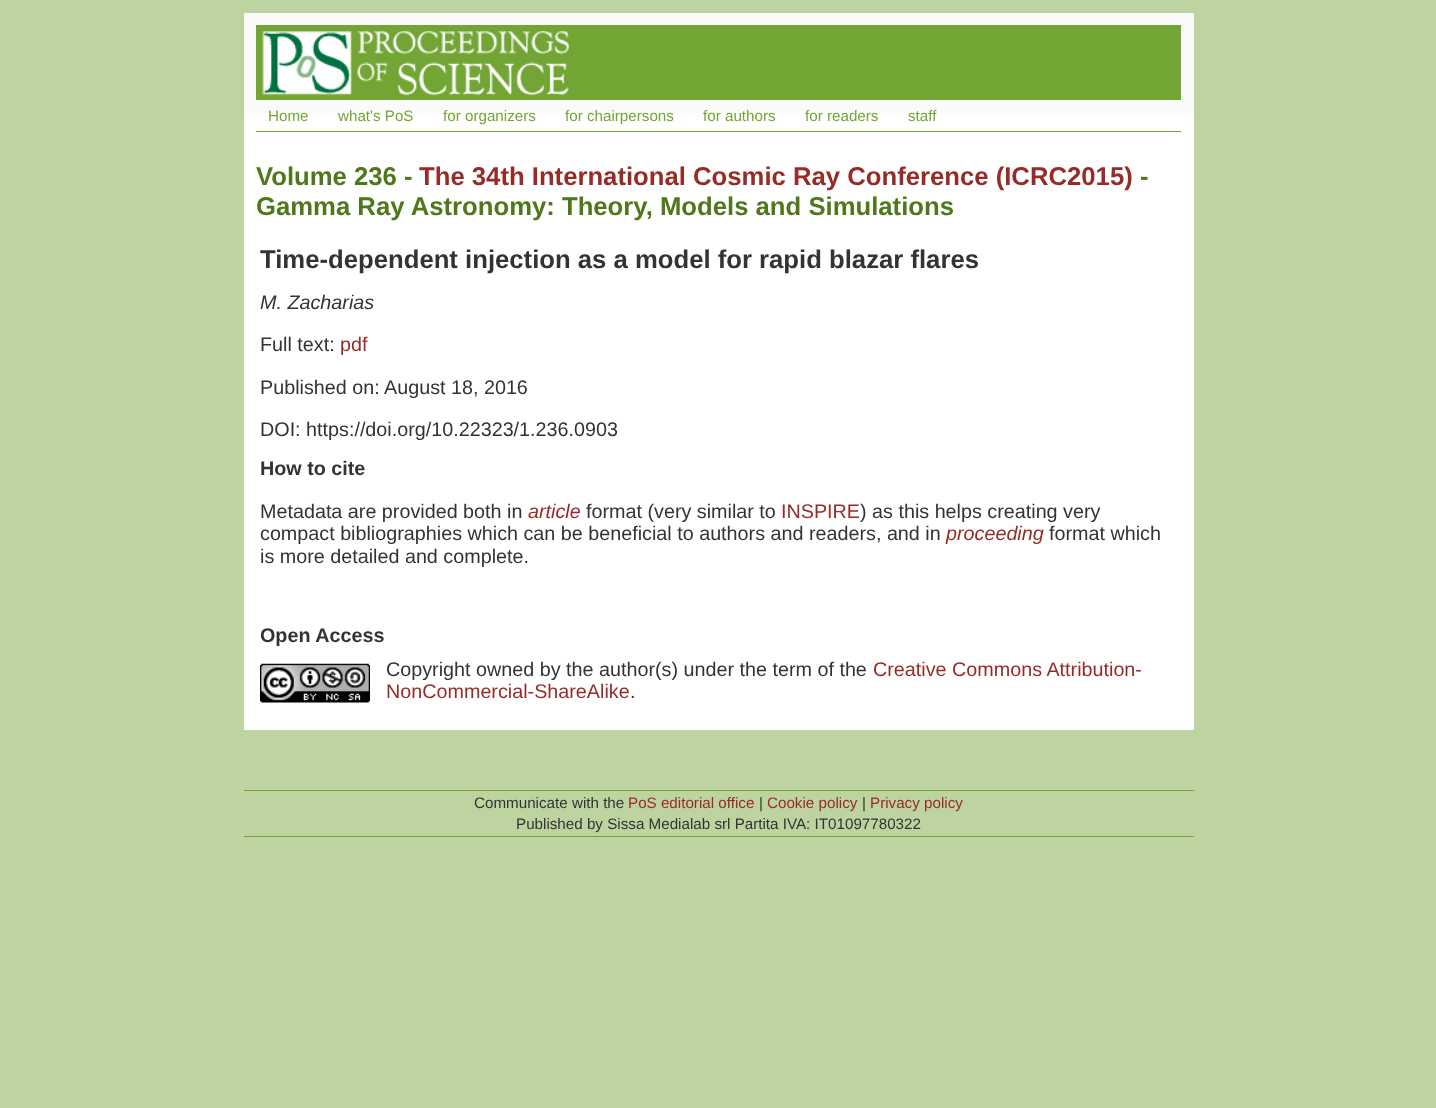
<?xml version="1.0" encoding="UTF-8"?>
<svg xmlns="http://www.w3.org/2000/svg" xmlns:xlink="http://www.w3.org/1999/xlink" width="1436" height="1108">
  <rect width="100%" height="100%" fill="#bdd4a1" />
  <rect x="244" y="13" width="950" height="100" fill="#fafafa" />
  <rect x="256" y="25" width="925" height="75" fill="#73a534" />
  <image x="262" y="31" width="307" height="65" xlink:href="image1.png" />
  <rect x="244" y="113" width="950" height="617" fill="#ffffff" />
  <rect x="256" y="131" width="925" height="1" fill="#73a534" />
  <image x="260" y="663" width="110" height="40" xlink:href="image2.png" />
  <rect x="244" y="790" width="950" height="1" fill="#73a534" />
  <rect x="244" y="836" width="950" height="1" fill="#73a534" />
  <text x="268" y="121" style="font-family: Liberation Sans; font-size: 15.2px; fill: #73a534">Home</text>
  <text x="338" y="121" style="font-family: Liberation Sans; font-size: 15.2px; fill: #73a534">what's PoS</text>
  <text x="443" y="121" style="font-family: Liberation Sans; font-size: 15.2px; fill: #73a534">for organizers</text>
  <text x="565" y="121" style="font-family: Liberation Sans; font-size: 15.2px; fill: #73a534">for chairpersons</text>
  <text x="703" y="121" style="font-family: Liberation Sans; font-size: 15.2px; fill: #73a534">for authors</text>
  <text x="805" y="121" style="font-family: Liberation Sans; font-size: 15.2px; fill: #73a534">for readers</text>
  <text x="908" y="121" style="font-family: Liberation Sans; font-size: 15.2px; fill: #73a534">staff</text>
  <text x="256" y="185" style="font-family: Liberation Sans; font-size: 25.7px; font-weight: bold; fill: #4e781a">Volume 236 -</text>
  <text x="419" y="185" style="font-family: Liberation Sans; font-size: 25.7px; font-weight: bold; fill: #962b27">The 34th International Cosmic Ray Conference (ICRC2015)</text>
  <text x="1140" y="185" style="font-family: Liberation Sans; font-size: 25.7px; font-weight: bold; fill: #4e781a">-</text>
  <text x="256" y="215" style="font-family: Liberation Sans; font-size: 25.7px; font-weight: bold; fill: #4e781a">Gamma Ray Astronomy: Theory, Models and Simulations</text>
  <text x="260" y="268" style="font-family: Liberation Sans; font-size: 25.7px; font-weight: bold; fill: #333333">Time-dependent injection as a model for rapid blazar flares</text>
  <text x="260" y="309" style="font-family: Liberation Sans; font-size: 19.75px; font-style: italic; fill: #333333">M. Zacharias</text>
  <text x="260" y="351" style="font-family: Liberation Sans; font-size: 19.75px; fill: #333333">Full text:</text>
  <text x="340" y="351" style="font-family: Liberation Sans; font-size: 19.75px; fill: #962b27">pdf</text>
  <text x="260" y="394" style="font-family: Liberation Sans; font-size: 19.75px; fill: #333333">Published on:</text>
  <text x="384" y="394" style="font-family: Liberation Sans; font-size: 19.75px; fill: #333333">August 18, 2016</text>
  <text x="260" y="436" style="font-family: Liberation Sans; font-size: 19.75px; fill: #333333">DOI: https://doi.org/10.22323/1.236.0903</text>
  <text x="260" y="475" style="font-family: Liberation Sans; font-size: 19.75px; font-weight: bold; fill: #333333">How to cite</text>
  <text x="260" y="518" style="font-family: Liberation Sans; font-size: 19.75px; fill: #333333">Metadata are provided both in</text>
  <text x="528" y="518" style="font-family: Liberation Sans; font-size: 19.75px; font-style: italic; fill: #962b27">article</text>
  <text x="586" y="518" style="font-family: Liberation Sans; font-size: 19.75px; fill: #333333">format (very similar to</text>
  <text x="781" y="518" style="font-family: Liberation Sans; font-size: 19.75px; fill: #962b27">INSPIRE</text>
  <text x="860" y="518" style="font-family: Liberation Sans; font-size: 19.75px; fill: #333333">) as this helps creating very</text>
  <text x="260" y="540" style="font-family: Liberation Sans; font-size: 19.75px; fill: #333333">compact bibliographies which can be beneficial to authors and readers, and in</text>
  <text x="946" y="540" style="font-family: Liberation Sans; font-size: 19.75px; font-style: italic; fill: #962b27">proceeding</text>
  <text x="1049" y="540" style="font-family: Liberation Sans; font-size: 19.75px; fill: #333333">format which</text>
  <text x="260" y="563" style="font-family: Liberation Sans; font-size: 19.75px; fill: #333333">is more detailed and complete.</text>
  <text x="260" y="642" style="font-family: Liberation Sans; font-size: 19.75px; font-weight: bold; fill: #333333">Open Access</text>
  <text x="386" y="676" style="font-family: Liberation Sans; font-size: 19.75px; fill: #333333">Copyright owned by the author(s) under the term of the</text>
  <text x="873" y="676" style="font-family: Liberation Sans; font-size: 19.75px; fill: #962b27">Creative Commons Attribution-</text>
  <text x="386" y="698" style="font-family: Liberation Sans; font-size: 19.75px; fill: #962b27">NonCommercial-ShareAlike</text>
  <text x="630" y="698" style="font-family: Liberation Sans; font-size: 19.75px; fill: #333333">.</text>
  <text x="474" y="808" style="font-family: Liberation Sans; font-size: 15.2px; fill: #333333">Communicate with the</text>
  <text x="628" y="808" style="font-family: Liberation Sans; font-size: 15.2px; fill: #962b27">PoS editorial office</text>
  <text x="759" y="808" style="font-family: Liberation Sans; font-size: 15.2px; fill: #333333">|</text>
  <text x="767" y="808" style="font-family: Liberation Sans; font-size: 15.2px; fill: #962b27">Cookie policy</text>
  <text x="862" y="808" style="font-family: Liberation Sans; font-size: 15.2px; fill: #333333">|</text>
  <text x="870" y="808" style="font-family: Liberation Sans; font-size: 15.2px; fill: #962b27">Privacy policy</text>
  <text x="516" y="829" style="font-family: Liberation Sans; font-size: 15.2px; fill: #333333">Published by Sissa Medialab srl Partita IVA: IT01097780322</text>
</svg>
